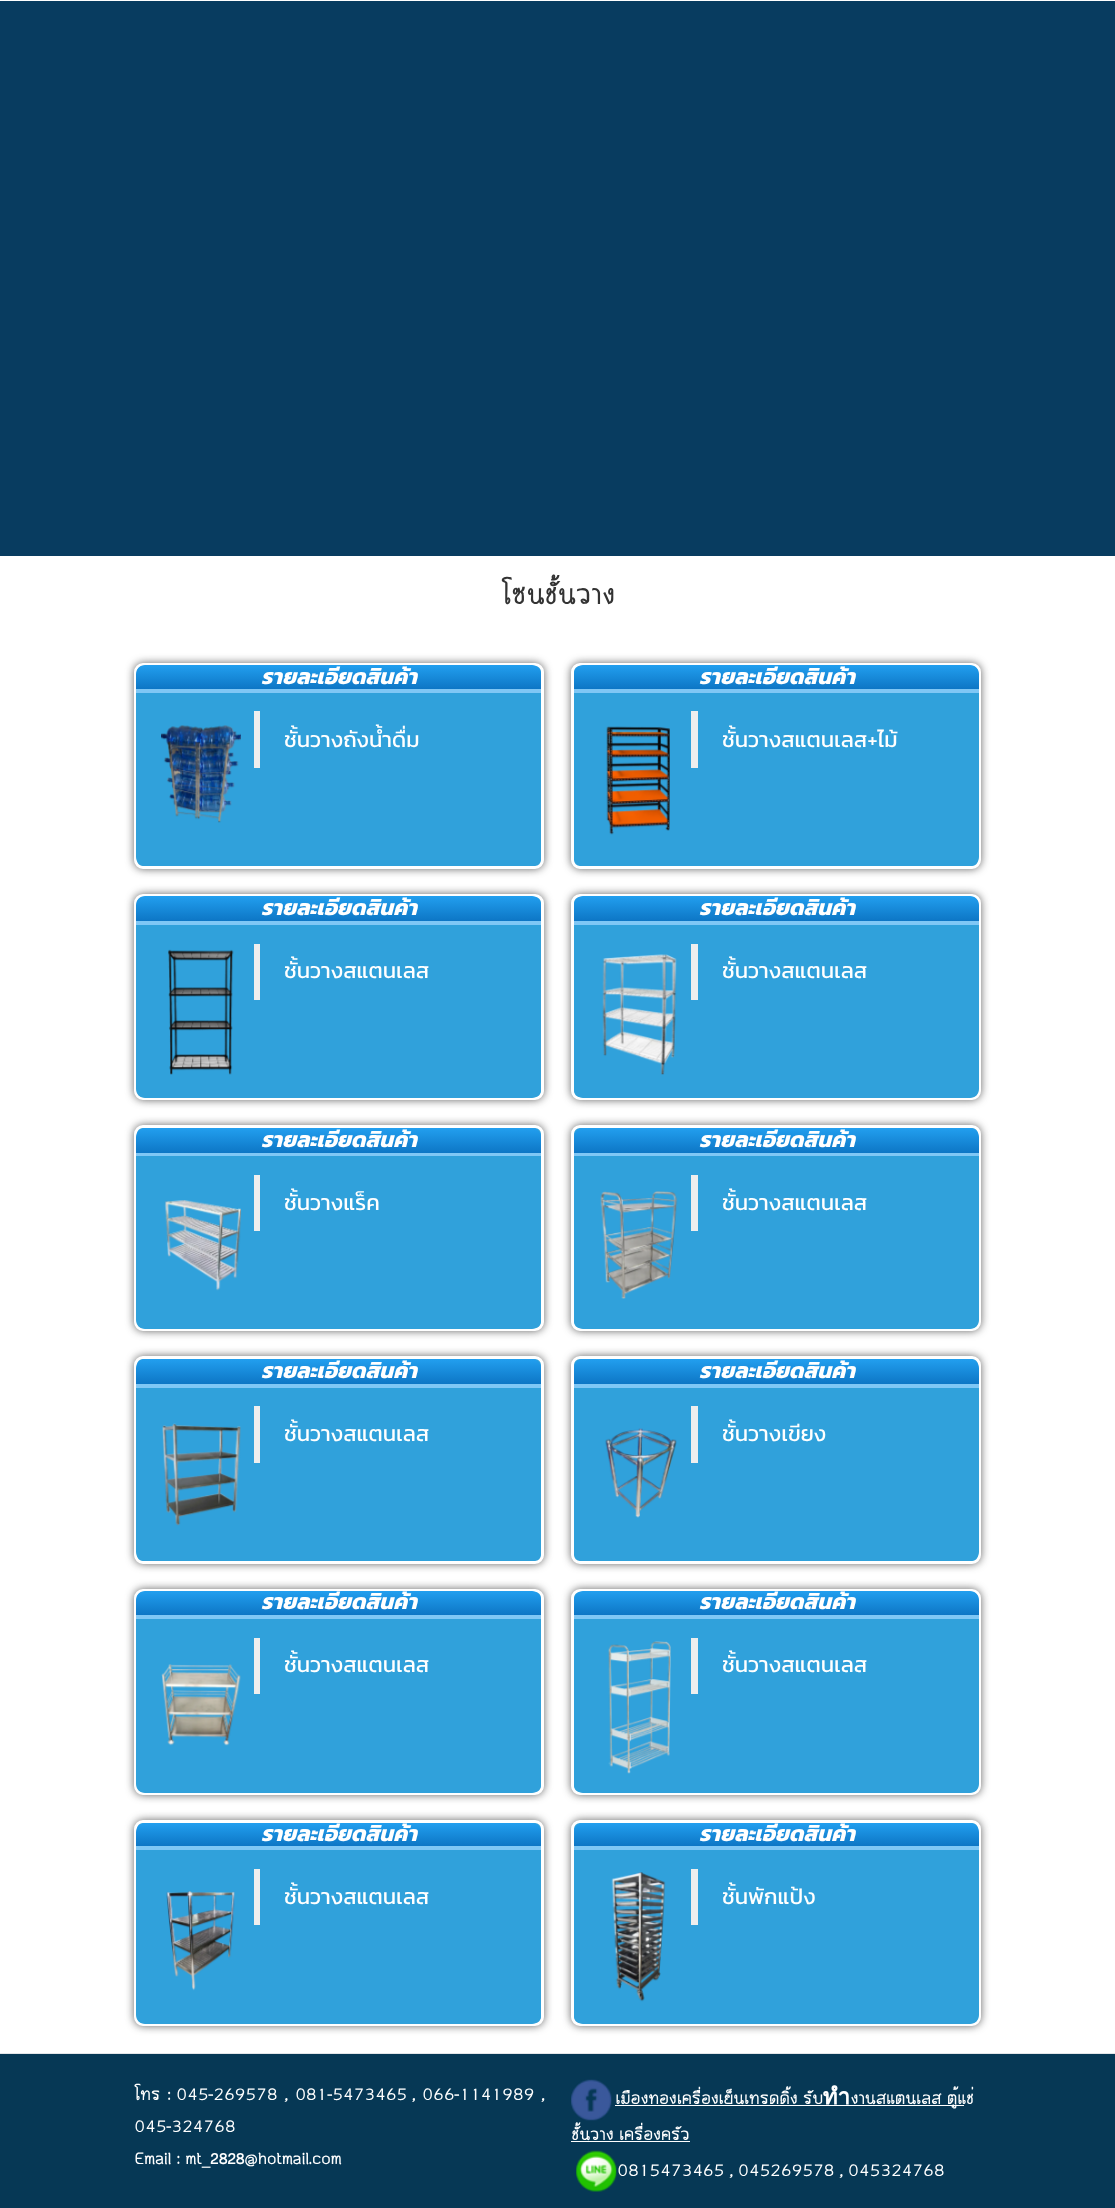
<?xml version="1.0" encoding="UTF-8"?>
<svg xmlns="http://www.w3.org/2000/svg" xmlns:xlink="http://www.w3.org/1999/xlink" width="1115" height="2208">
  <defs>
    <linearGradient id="g1" gradientUnits="userSpaceOnUse" x1="339" y1="665" x2="339" y2="689"><stop offset="0" stop-color="#229fef" /><stop offset="1" stop-color="#0d76c5" /></linearGradient>
    <linearGradient id="g2" gradientUnits="userSpaceOnUse" x1="339" y1="896" x2="339" y2="921"><stop offset="0" stop-color="#229fef" /><stop offset="1" stop-color="#0d76c5" /></linearGradient>
    <linearGradient id="g3" gradientUnits="userSpaceOnUse" x1="339" y1="1128" x2="339" y2="1153"><stop offset="0" stop-color="#229fef" /><stop offset="1" stop-color="#0d76c5" /></linearGradient>
    <linearGradient id="g4" gradientUnits="userSpaceOnUse" x1="339" y1="1359" x2="339" y2="1384"><stop offset="0" stop-color="#229fef" /><stop offset="1" stop-color="#0d76c5" /></linearGradient>
    <linearGradient id="g5" gradientUnits="userSpaceOnUse" x1="339" y1="1591" x2="339" y2="1615"><stop offset="0" stop-color="#229fef" /><stop offset="1" stop-color="#0d76c5" /></linearGradient>
    <linearGradient id="g6" gradientUnits="userSpaceOnUse" x1="339" y1="1823" x2="339" y2="1846"><stop offset="0" stop-color="#229fef" /><stop offset="1" stop-color="#0d76c5" /></linearGradient>
    <linearGradient id="g7" gradientUnits="userSpaceOnUse" x1="776" y1="665" x2="776" y2="689"><stop offset="0" stop-color="#229fef" /><stop offset="1" stop-color="#0d76c5" /></linearGradient>
    <linearGradient id="g8" gradientUnits="userSpaceOnUse" x1="776" y1="896" x2="776" y2="921"><stop offset="0" stop-color="#229fef" /><stop offset="1" stop-color="#0d76c5" /></linearGradient>
    <linearGradient id="g9" gradientUnits="userSpaceOnUse" x1="776" y1="1128" x2="776" y2="1153"><stop offset="0" stop-color="#229fef" /><stop offset="1" stop-color="#0d76c5" /></linearGradient>
    <linearGradient id="g10" gradientUnits="userSpaceOnUse" x1="776" y1="1359" x2="776" y2="1384"><stop offset="0" stop-color="#229fef" /><stop offset="1" stop-color="#0d76c5" /></linearGradient>
    <linearGradient id="g11" gradientUnits="userSpaceOnUse" x1="776" y1="1591" x2="776" y2="1615"><stop offset="0" stop-color="#229fef" /><stop offset="1" stop-color="#0d76c5" /></linearGradient>
    <linearGradient id="g12" gradientUnits="userSpaceOnUse" x1="776" y1="1823" x2="776" y2="1846"><stop offset="0" stop-color="#229fef" /><stop offset="1" stop-color="#0d76c5" /></linearGradient>
  </defs>
  <rect width="100%" height="100%" fill="#ffffff" />
  <rect y="1" width="1115" height="555" fill="#083c60" />
  <rect x="134" y="663" width="410" height="206" rx="9" fill="#323232" fill-opacity="0.75" filter="blur(4.5px)" />
  <rect x="135.5" y="664.5" width="407" height="203" rx="7.5" fill="#30a1db" stroke="#ffffff" stroke-width="3" />
  <path d="M 145 665 h 387 c 5 0 9 4 9 9 v 15 h -405 v -15 c 0 -5 4 -9 9 -9 z" fill="url(#g1)" />
  <rect x="136" y="689" width="405" height="4" fill="#7fc7f5" />
  <path d="M 136 693 h 405 v 164 c 0 5 -4 9 -9 9 h -387 c -5 0 -9 -4 -9 -9 z" fill="#30a1db" />
  <image x="161" y="725" width="80" height="98" xlink:href="image1.png" />
  <rect x="254" y="711" width="6" height="57" fill="#eeeeee" />
  <rect x="134" y="894" width="410" height="206" rx="9" fill="#323232" fill-opacity="0.75" filter="blur(4.5px)" />
  <rect x="135.5" y="895.5" width="407" height="203" rx="7.5" fill="#30a1db" stroke="#ffffff" stroke-width="3" />
  <path d="M 145 896 h 387 c 5 0 9 4 9 9 v 16 h -405 v -16 c 0 -5 4 -9 9 -9 z" fill="url(#g2)" />
  <rect x="136" y="921" width="405" height="4" fill="#7fc7f5" />
  <path d="M 136 925 h 405 v 164 c 0 5 -4 9 -9 9 h -387 c -5 0 -9 -4 -9 -9 z" fill="#30a1db" />
  <image x="168" y="949" width="66" height="126" xlink:href="image2.png" />
  <rect x="254" y="944" width="6" height="56" fill="#eeeeee" />
  <rect x="134" y="1125" width="410" height="206" rx="9" fill="#323232" fill-opacity="0.75" filter="blur(4.5px)" />
  <rect x="135.5" y="1126.5" width="407" height="203" rx="7.5" fill="#30a1db" stroke="#ffffff" stroke-width="3" />
  <path d="M 145 1128 h 387 c 5 0 9 4 9 9 v 16 h -405 v -16 c 0 -5 4 -9 9 -9 z" fill="url(#g3)" />
  <rect x="136" y="1153" width="405" height="3" fill="#7fc7f5" />
  <path d="M 136 1156 h 405 v 164 c 0 5 -4 9 -9 9 h -387 c -5 0 -9 -4 -9 -9 z" fill="#30a1db" />
  <image x="164" y="1200" width="77" height="91" xlink:href="image3.png" />
  <rect x="254" y="1175" width="6" height="56" fill="#eeeeee" />
  <rect x="134" y="1356" width="410" height="208" rx="9" fill="#323232" fill-opacity="0.75" filter="blur(4.5px)" />
  <rect x="135.5" y="1357.5" width="407" height="205" rx="7.5" fill="#30a1db" stroke="#ffffff" stroke-width="3" />
  <path d="M 145 1359 h 387 c 5 0 9 4 9 9 v 16 h -405 v -16 c 0 -5 4 -9 9 -9 z" fill="url(#g4)" />
  <rect x="136" y="1384" width="405" height="4" fill="#7fc7f5" />
  <path d="M 136 1388 h 405 v 164 c 0 5 -4 9 -9 9 h -387 c -5 0 -9 -4 -9 -9 z" fill="#30a1db" />
  <image x="162" y="1423" width="79" height="103" xlink:href="image4.png" />
  <rect x="254" y="1406" width="6" height="57" fill="#eeeeee" />
  <rect x="134" y="1589" width="410" height="206" rx="9" fill="#323232" fill-opacity="0.75" filter="blur(4.5px)" />
  <rect x="135.5" y="1590.5" width="407" height="203" rx="7.5" fill="#30a1db" stroke="#ffffff" stroke-width="3" />
  <path d="M 145 1591 h 387 c 5 0 9 4 9 9 v 15 h -405 v -15 c 0 -5 4 -9 9 -9 z" fill="url(#g5)" />
  <rect x="136" y="1615" width="405" height="4" fill="#7fc7f5" />
  <path d="M 136 1619 h 405 v 165 c 0 5 -4 9 -9 9 h -387 c -5 0 -9 -4 -9 -9 z" fill="#30a1db" />
  <rect x="254" y="1638" width="6" height="56" fill="#eeeeee" />
  <image x="161" y="1664" width="80" height="82" xlink:href="image5.png" />
  <rect x="134" y="1820" width="410" height="206" rx="9" fill="#323232" fill-opacity="0.75" filter="blur(4.5px)" />
  <rect x="135.5" y="1821.5" width="407" height="203" rx="7.5" fill="#30a1db" stroke="#ffffff" stroke-width="3" />
  <path d="M 145 1823 h 387 c 5 0 9 4 9 9 v 14 h -405 v -14 c 0 -5 4 -9 9 -9 z" fill="url(#g6)" />
  <rect x="136" y="1846" width="405" height="4" fill="#7fc7f5" />
  <path d="M 136 1850 h 405 v 165 c 0 5 -4 9 -9 9 h -387 c -5 0 -9 -4 -9 -9 z" fill="#30a1db" />
  <image x="166" y="1891" width="69" height="100" xlink:href="image6.png" />
  <rect x="254" y="1869" width="6" height="56" fill="#eeeeee" />
  <rect x="571" y="663" width="410" height="206" rx="9" fill="#323232" fill-opacity="0.75" filter="blur(4.5px)" />
  <rect x="572.5" y="664.5" width="407" height="203" rx="7.5" fill="#30a1db" stroke="#ffffff" stroke-width="3" />
  <path d="M 583 665 h 387 c 5 0 9 4 9 9 v 15 h -405 v -15 c 0 -5 4 -9 9 -9 z" fill="url(#g7)" />
  <rect x="574" y="689" width="405" height="4" fill="#7fc7f5" />
  <path d="M 574 693 h 405 v 164 c 0 5 -4 9 -9 9 h -387 c -5 0 -9 -4 -9 -9 z" fill="#30a1db" />
  <image x="606" y="726" width="64" height="109" xlink:href="image7.png" />
  <rect x="691" y="711" width="7" height="57" fill="#eeeeee" />
  <rect x="571" y="894" width="410" height="206" rx="9" fill="#323232" fill-opacity="0.75" filter="blur(4.5px)" />
  <rect x="572.5" y="895.5" width="407" height="203" rx="7.5" fill="#30a1db" stroke="#ffffff" stroke-width="3" />
  <path d="M 583 896 h 387 c 5 0 9 4 9 9 v 16 h -405 v -16 c 0 -5 4 -9 9 -9 z" fill="url(#g8)" />
  <rect x="574" y="921" width="405" height="4" fill="#7fc7f5" />
  <path d="M 574 925 h 405 v 164 c 0 5 -4 9 -9 9 h -387 c -5 0 -9 -4 -9 -9 z" fill="#30a1db" />
  <image x="602" y="954" width="75" height="121" xlink:href="image8.png" />
  <rect x="691" y="944" width="7" height="56" fill="#eeeeee" />
  <rect x="571" y="1125" width="410" height="206" rx="9" fill="#323232" fill-opacity="0.75" filter="blur(4.5px)" />
  <rect x="572.5" y="1126.5" width="407" height="203" rx="7.5" fill="#30a1db" stroke="#ffffff" stroke-width="3" />
  <path d="M 583 1128 h 387 c 5 0 9 4 9 9 v 16 h -405 v -16 c 0 -5 4 -9 9 -9 z" fill="url(#g9)" />
  <rect x="574" y="1153" width="405" height="3" fill="#7fc7f5" />
  <path d="M 574 1156 h 405 v 164 c 0 5 -4 9 -9 9 h -387 c -5 0 -9 -4 -9 -9 z" fill="#30a1db" />
  <image x="600" y="1191" width="78" height="108" xlink:href="image9.png" />
  <rect x="691" y="1175" width="7" height="56" fill="#eeeeee" />
  <rect x="571" y="1356" width="410" height="208" rx="9" fill="#323232" fill-opacity="0.75" filter="blur(4.5px)" />
  <rect x="572.5" y="1357.5" width="407" height="205" rx="7.5" fill="#30a1db" stroke="#ffffff" stroke-width="3" />
  <path d="M 583 1359 h 387 c 5 0 9 4 9 9 v 16 h -405 v -16 c 0 -5 4 -9 9 -9 z" fill="url(#g10)" />
  <rect x="574" y="1384" width="405" height="4" fill="#7fc7f5" />
  <path d="M 574 1388 h 405 v 164 c 0 5 -4 9 -9 9 h -387 c -5 0 -9 -4 -9 -9 z" fill="#30a1db" />
  <image x="605" y="1428" width="72" height="90" xlink:href="image10.png" />
  <rect x="691" y="1406" width="7" height="57" fill="#eeeeee" />
  <rect x="571" y="1589" width="410" height="206" rx="9" fill="#323232" fill-opacity="0.75" filter="blur(4.5px)" />
  <rect x="572.5" y="1590.5" width="407" height="203" rx="7.5" fill="#30a1db" stroke="#ffffff" stroke-width="3" />
  <path d="M 583 1591 h 387 c 5 0 9 4 9 9 v 15 h -405 v -15 c 0 -5 4 -9 9 -9 z" fill="url(#g11)" />
  <rect x="574" y="1615" width="405" height="4" fill="#7fc7f5" />
  <path d="M 574 1619 h 405 v 165 c 0 5 -4 9 -9 9 h -387 c -5 0 -9 -4 -9 -9 z" fill="#30a1db" />
  <image x="608" y="1641" width="63" height="133" xlink:href="image11.png" />
  <rect x="691" y="1638" width="7" height="56" fill="#eeeeee" />
  <rect x="571" y="1820" width="410" height="206" rx="9" fill="#323232" fill-opacity="0.75" filter="blur(4.5px)" />
  <rect x="572.5" y="1821.5" width="407" height="203" rx="7.5" fill="#30a1db" stroke="#ffffff" stroke-width="3" />
  <path d="M 583 1823 h 387 c 5 0 9 4 9 9 v 14 h -405 v -14 c 0 -5 4 -9 9 -9 z" fill="url(#g12)" />
  <rect x="574" y="1846" width="405" height="4" fill="#7fc7f5" />
  <path d="M 574 1850 h 405 v 165 c 0 5 -4 9 -9 9 h -387 c -5 0 -9 -4 -9 -9 z" fill="#30a1db" />
  <image x="611" y="1872" width="55" height="130" xlink:href="image12.png" />
  <rect x="691" y="1869" width="7" height="56" fill="#eeeeee" />
  <rect y="2053" width="1115" height="1" fill="#e3e5e8" />
  <rect y="2054" width="1115" height="154" fill="#063855" />
  <image x="571" y="2079" width="41" height="42" xlink:href="image13.png" />
  <rect x="615" y="2105" width="349" height="1" fill="#ffffff" />
  <rect x="571" y="2141" width="119" height="1" fill="#ffffff" />
  <image x="576" y="2150" width="41" height="42" xlink:href="image14.png" />
  <text x="501" y="604" style="font-family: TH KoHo; font-size: 37.5px; font-weight: bold; fill: #333333">โซนชั้นวาง</text>
  <text x="261" y="684" style="font-family: Kanit; font-size: 22px; font-weight: bold; font-style: italic; fill: #ffffff">รายละเอียดสินค้า</text>
  <text x="284" y="747" style="font-family: Kanit; font-size: 22px; fill: #ffffff">ชั้นวางถังนํ้าดื่ม</text>
  <text x="261" y="915" style="font-family: Kanit; font-size: 22px; font-weight: bold; font-style: italic; fill: #ffffff">รายละเอียดสินค้า</text>
  <text x="284" y="978" style="font-family: Kanit; font-size: 22px; fill: #ffffff">ชั้นวางสแตนเลส</text>
  <text x="261" y="1147" style="font-family: Kanit; font-size: 22px; font-weight: bold; font-style: italic; fill: #ffffff">รายละเอียดสินค้า</text>
  <text x="284" y="1210" style="font-family: Kanit; font-size: 22px; fill: #ffffff">ชั้นวางแร็ค</text>
  <text x="261" y="1378" style="font-family: Kanit; font-size: 22px; font-weight: bold; font-style: italic; fill: #ffffff">รายละเอียดสินค้า</text>
  <text x="284" y="1441" style="font-family: Kanit; font-size: 22px; fill: #ffffff">ชั้นวางสแตนเลส</text>
  <text x="261" y="1609" style="font-family: Kanit; font-size: 22px; font-weight: bold; font-style: italic; fill: #ffffff">รายละเอียดสินค้า</text>
  <text x="284" y="1672" style="font-family: Kanit; font-size: 22px; fill: #ffffff">ชั้นวางสแตนเลส</text>
  <text x="261" y="1841" style="font-family: Kanit; font-size: 22px; font-weight: bold; font-style: italic; fill: #ffffff">รายละเอียดสินค้า</text>
  <text x="284" y="1904" style="font-family: Kanit; font-size: 22px; fill: #ffffff">ชั้นวางสแตนเลส</text>
  <text x="699" y="684" style="font-family: Kanit; font-size: 22px; font-weight: bold; font-style: italic; fill: #ffffff">รายละเอียดสินค้า</text>
  <text x="722" y="747" style="font-family: Kanit; font-size: 22px; fill: #ffffff">ชั้นวางสแตนเลส+ไม้</text>
  <text x="699" y="915" style="font-family: Kanit; font-size: 22px; font-weight: bold; font-style: italic; fill: #ffffff">รายละเอียดสินค้า</text>
  <text x="722" y="978" style="font-family: Kanit; font-size: 22px; fill: #ffffff">ชั้นวางสแตนเลส</text>
  <text x="699" y="1147" style="font-family: Kanit; font-size: 22px; font-weight: bold; font-style: italic; fill: #ffffff">รายละเอียดสินค้า</text>
  <text x="722" y="1210" style="font-family: Kanit; font-size: 22px; fill: #ffffff">ชั้นวางสแตนเลส</text>
  <text x="699" y="1378" style="font-family: Kanit; font-size: 22px; font-weight: bold; font-style: italic; fill: #ffffff">รายละเอียดสินค้า</text>
  <text x="722" y="1441" style="font-family: Kanit; font-size: 22px; fill: #ffffff">ชั้นวางเขียง</text>
  <text x="699" y="1609" style="font-family: Kanit; font-size: 22px; font-weight: bold; font-style: italic; fill: #ffffff">รายละเอียดสินค้า</text>
  <text x="722" y="1672" style="font-family: Kanit; font-size: 22px; fill: #ffffff">ชั้นวางสแตนเลส</text>
  <text x="699" y="1841" style="font-family: Kanit; font-size: 22px; font-weight: bold; font-style: italic; fill: #ffffff">รายละเอียดสินค้า</text>
  <text x="722" y="1904" style="font-family: Kanit; font-size: 22px; fill: #ffffff">ชั้นพักแป้ง</text>
  <text x="134" y="2100" word-spacing="2" style="font-family: TH KoHo; font-size: 22.5px; font-weight: bold; fill: #ffffff">โทร :</text>
  <text x="176" y="2100" word-spacing="2" style="font-family: TH KoHo; font-size: 22.5px; font-weight: bold; fill: #ffffff">045-269578 , 081-5473465</text>
  <text x="412" y="2100" style="font-family: TH KoHo; font-size: 22.5px; font-weight: bold; fill: #ffffff">,</text>
  <text x="422" y="2100" word-spacing="2" style="font-family: TH KoHo; font-size: 22.5px; font-weight: bold; fill: #ffffff">066-1141989 ,</text>
  <text x="134" y="2132" style="font-family: TH KoHo; font-size: 22.5px; font-weight: bold; fill: #ffffff">045-324768</text>
  <text x="134" y="2164" style="font-family: TH KoHo; font-size: 22.5px; font-weight: bold; fill: #ffffff">Email : mt_</text>
  <text x="210" y="2164" style="font-family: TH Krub; font-size: 22.5px; font-weight: bold; fill: #ffffff">2828</text>
  <text x="244" y="2164" style="font-family: TH KoHo; font-size: 22.5px; font-weight: bold; fill: #ffffff">@hotmail.com</text>
  <text x="615" y="2104" style="font-family: TH KoHo; font-size: 22.5px; font-weight: bold; fill: #ffffff">เมืองทองเครื่องเย็นเทรดดิ้ง รับทำงานสแตนเลส ตู้แช่</text>
  <text x="571" y="2140" style="font-family: TH KoHo; font-size: 22.5px; font-weight: bold; fill: #ffffff">ชั้นวาง เครื่องครัว</text>
  <text x="617" y="2176" style="font-family: TH KoHo; font-size: 22.5px; font-weight: bold; fill: #ffffff">0815473465 , 045269578 , 045324768</text>
</svg>
